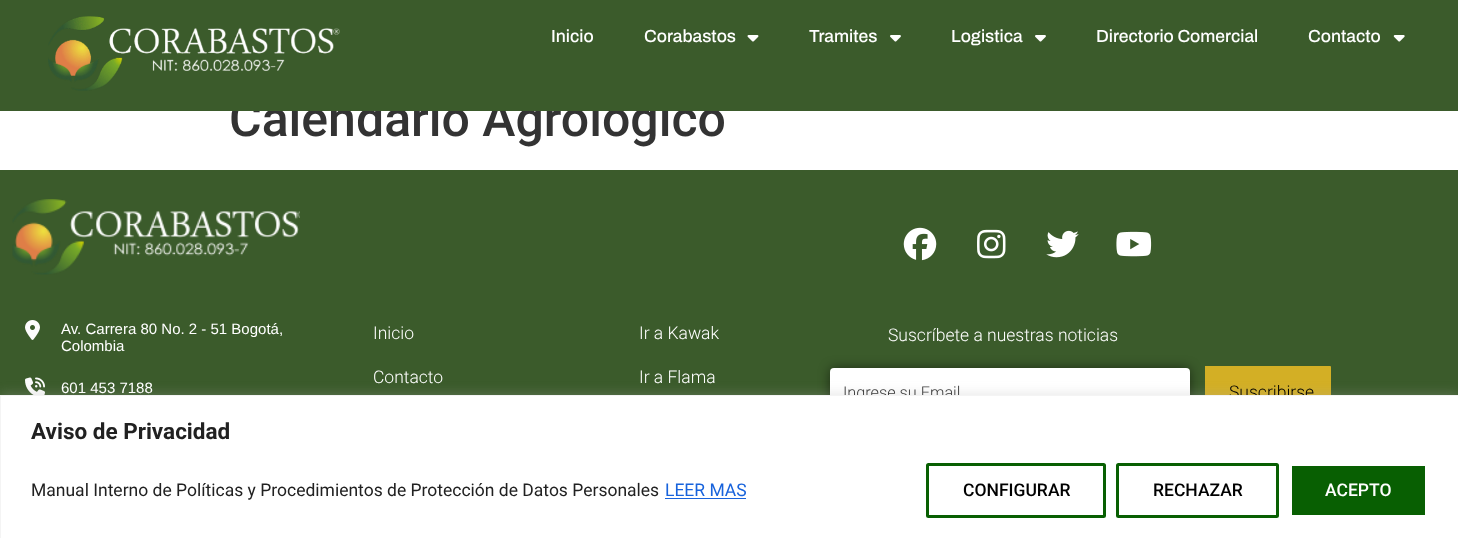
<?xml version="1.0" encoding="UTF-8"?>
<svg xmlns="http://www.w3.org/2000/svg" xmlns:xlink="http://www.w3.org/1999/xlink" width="1458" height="538">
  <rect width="100%" height="100%" fill="#ffffff" />
  <rect y="170" width="1458" height="225" fill="#3b5b2b" />
  <image x="12" y="199" width="288" height="76" xlink:href="image5.png" />
  <image x="25" y="320" width="15" height="20" xlink:href="image6.png" />
  <image x="25" y="377" width="20" height="18" xlink:href="image7.png" />
  <image x="903" y="227" width="34" height="34" xlink:href="image8.png" />
  <image x="977" y="229" width="29" height="30" xlink:href="image9.png" />
  <image x="1046" y="230" width="33" height="28" xlink:href="image10.png" />
  <image x="1116" y="231" width="36" height="26" xlink:href="image11.png" />
  <rect x="830" y="368" width="360" height="50" rx="4" fill="#000000" fill-opacity="0.5" filter="blur(6px)" />
  <rect x="830" y="368" width="360" height="50" rx="4" fill="#ffffff" />
  <path d="M 1205 366 h 125 c 0.5 0 1 0.5 1 1 v 51 h -126 z" fill="#d3af25" />
  <rect y="394" width="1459" height="144" fill="#acabab" fill-opacity="0.3" filter="blur(6px)" />
  <text x="229" y="136" style="font-family: Roboto; font-size: 50px; font-weight: 500; fill: #333333">Calendario Agrológico</text>
  <rect width="1458" height="111" fill="#3b5b2b" />
  <image x="1393" y="35" width="12" height="7" xlink:href="image4.png" />
  <text x="1308" y="42" style="font-family: Archivo; font-size: 17.5px; font-weight: 500; fill: #ffffff">Contacto</text>
  <text x="1096" y="42" style="font-family: Archivo; font-size: 17.5px; font-weight: 500; fill: #ffffff">Directorio Comercial</text>
  <image x="1035" y="35" width="11" height="7" xlink:href="image3.png" />
  <text x="951" y="42" style="font-family: Archivo; font-size: 17.5px; font-weight: 500; fill: #ffffff">Logistica</text>
  <image x="890" y="35" width="11" height="7" xlink:href="image3.png" />
  <text x="809" y="42" style="font-family: Archivo; font-size: 17.5px; font-weight: 500; fill: #ffffff">Tramites</text>
  <image x="747" y="35" width="12" height="7" xlink:href="image2.png" />
  <text x="644" y="42" style="font-family: Archivo; font-size: 17.5px; font-weight: 500; fill: #ffffff">Corabastos</text>
  <text x="551" y="42" style="font-family: Archivo; font-size: 17.5px; font-weight: 500; fill: #ffffff">Inicio</text>
  <image x="48" y="16" width="292" height="75" xlink:href="image1.png" />
  <text x="61" y="334" style="font-family: Liberation Sans; font-size: 15px; fill: #ffffff">Av. Carrera 80 No. 2 - 51 Bogotá,</text>
  <text x="61" y="351" style="font-family: Liberation Sans; font-size: 15px; fill: #ffffff">Colombia</text>
  <text x="61" y="393" style="font-family: Liberation Sans; font-size: 15px; fill: #ffffff">601 453 7188</text>
  <text x="373" y="339" style="font-family: Roboto; font-size: 17.5px; font-weight: 300; fill: #ffffff">Inicio</text>
  <text x="373" y="383" style="font-family: Roboto; font-size: 17.5px; font-weight: 300; fill: #ffffff">Contacto</text>
  <text x="639" y="339" style="font-family: Roboto; font-size: 17.5px; font-weight: 300; fill: #ffffff">Ir a Kawak</text>
  <text x="639" y="383" style="font-family: Roboto; font-size: 17.5px; font-weight: 300; fill: #ffffff">Ir a Flama</text>
  <text x="888" y="341" style="font-family: Roboto; font-size: 17.5px; font-weight: 300; fill: #ffffff">Suscríbete a nuestras noticias</text>
  <text x="843" y="398" style="font-family: Roboto; font-size: 16.25px; font-weight: 300; fill: #3b3b3b">Ingrese su Email</text>
  <text x="1229" y="398" style="font-family: Roboto; font-size: 17.5px; font-weight: 300; fill: #000000">Suscribirse</text>
  <rect x="0.5" y="395.5" width="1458" height="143" fill="#ffffff" stroke="#f4f4f4" />
  <text x="31" y="439" style="font-family: Roboto; font-size: 22.5px; font-weight: bold; fill: #212121">Aviso de Privacidad</text>
  <text x="31" y="496" style="font-family: Roboto; font-size: 17.5px; fill: #212121">Manual Interno de Políticas y Procedimientos de Protección de Datos Personales</text>
  <text x="665" y="496" style="font-family: Roboto; font-size: 17.5px; fill: #1863dc">LEER MAS</text>
  <rect x="665" y="498" width="81" height="1" fill="#1863dc" />
  <rect x="927.5" y="464.5" width="177" height="52" rx="1" fill="none" stroke="#085f02" stroke-width="3" />
  <text x="963" y="496" style="font-family: Roboto; font-size: 17.5px; font-weight: 500; fill: #000000">CONFIGURAR</text>
  <rect x="1117.5" y="464.5" width="160" height="52" rx="1" fill="none" stroke="#085f02" stroke-width="3" />
  <text x="1153" y="496" style="font-family: Roboto; font-size: 17.5px; font-weight: 500; fill: #000000">RECHAZAR</text>
  <rect x="1290.5" y="464.5" width="136" height="52" rx="1" fill="#085f02" stroke="#ffffff" stroke-width="3" />
  <text x="1325" y="496" style="font-family: Roboto; font-size: 17.5px; font-weight: 500; fill: #ffffff">ACEPTO</text>
</svg>
